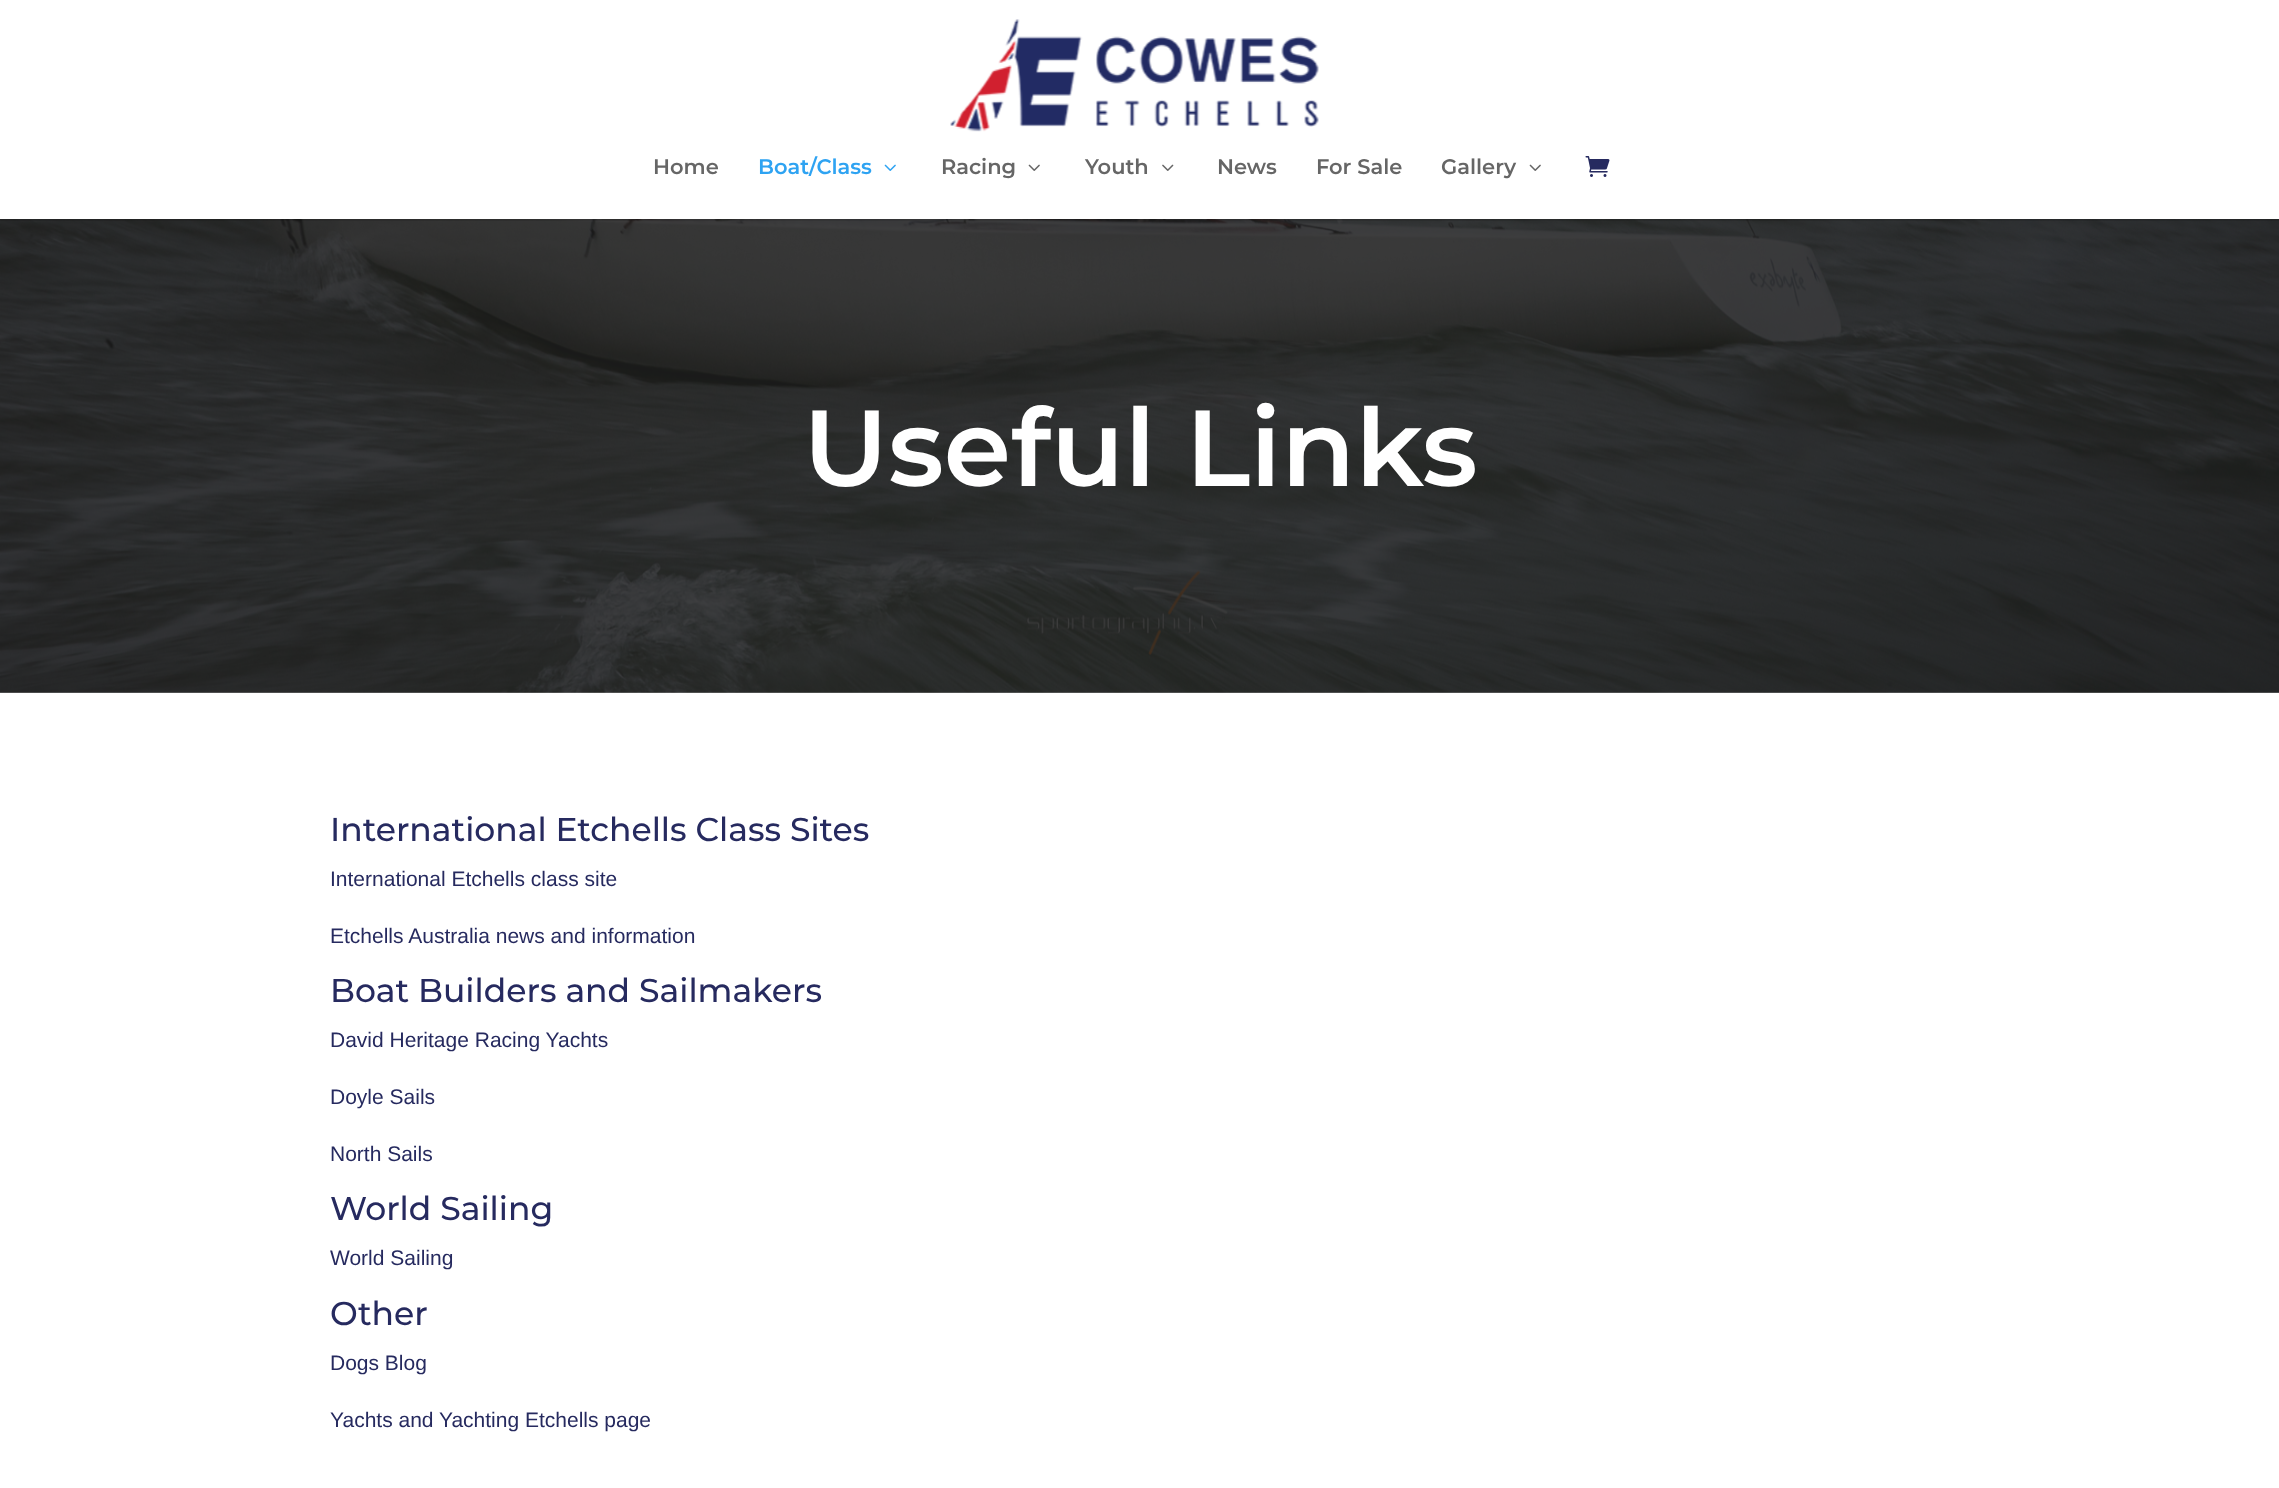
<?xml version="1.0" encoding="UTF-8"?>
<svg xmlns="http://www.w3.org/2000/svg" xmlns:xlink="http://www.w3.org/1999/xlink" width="2279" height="1488">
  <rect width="100%" height="100%" fill="#ffffff" />
  <image x="0" y="219" width="2279" height="474" xlink:href="image6.png" />
  <rect y="219" width="2279" height="2" fill="#000000" fill-opacity="0.1" />
  <image x="950" y="19" width="369" height="113" xlink:href="image1.png" />
  <image x="884" y="164" width="12" height="7" xlink:href="image2.png" />
  <image x="1028" y="164" width="12" height="7" xlink:href="image3.png" />
  <image x="1162" y="164" width="12" height="7" xlink:href="image4.png" />
  <image x="1529" y="164" width="12" height="7" xlink:href="image3.png" />
  <image x="1585" y="156" width="25" height="21" xlink:href="image5.png" />
  <text x="653" y="174" style="font-family: Montserrat; font-size: 21px; font-weight: 600; fill: #666666">Home</text>
  <text x="758" y="174" style="font-family: Montserrat; font-size: 21px; font-weight: 600; fill: #2ea3f2">Boat/Class</text>
  <text x="941" y="174" style="font-family: Montserrat; font-size: 21px; font-weight: 600; fill: #666666">Racing</text>
  <text x="1085" y="174" style="font-family: Montserrat; font-size: 21px; font-weight: 600; fill: #666666">Youth</text>
  <text x="1217" y="174" style="font-family: Montserrat; font-size: 21px; font-weight: 600; fill: #666666">News</text>
  <text x="1316" y="174" style="font-family: Montserrat; font-size: 21px; font-weight: 600; fill: #666666">For Sale</text>
  <text x="1441" y="174" style="font-family: Montserrat; font-size: 21px; font-weight: 600; fill: #666666">Gallery</text>
  <text x="803" y="486" style="font-family: Montserrat; font-size: 108px; font-weight: 600; fill: #ffffff">Useful Links</text>
  <text x="330" y="841" style="font-family: Montserrat; font-size: 33px; font-weight: 500; fill: #262a5f">International Etchells Class Sites</text>
  <text x="330" y="886" style="font-family: Liberation Sans; font-size: 21px; fill: #262a5f">International Etchells class site</text>
  <text x="330" y="943" style="font-family: Liberation Sans; font-size: 21px; fill: #262a5f">Etchells Australia news and information</text>
  <text x="330" y="1002" style="font-family: Montserrat; font-size: 33px; font-weight: 500; fill: #262a5f">Boat Builders and Sailmakers</text>
  <text x="330" y="1047" style="font-family: Liberation Sans; font-size: 21px; fill: #262a5f">David Heritage Racing Yachts</text>
  <text x="330" y="1104" style="font-family: Liberation Sans; font-size: 21px; fill: #262a5f">Doyle Sails</text>
  <text x="330" y="1161" style="font-family: Liberation Sans; font-size: 21px; fill: #262a5f">North Sails</text>
  <text x="330" y="1220" style="font-family: Montserrat; font-size: 33px; font-weight: 500; fill: #262a5f">World Sailing</text>
  <text x="330" y="1265" style="font-family: Liberation Sans; font-size: 21px; fill: #262a5f">World Sailing</text>
  <text x="330" y="1325" style="font-family: Montserrat; font-size: 33px; font-weight: 500; fill: #262a5f">Other</text>
  <text x="330" y="1370" style="font-family: Liberation Sans; font-size: 21px; fill: #262a5f">Dogs Blog</text>
  <text x="330" y="1427" style="font-family: Liberation Sans; font-size: 21px; fill: #262a5f">Yachts and Yachting Etchells page</text>
</svg>
